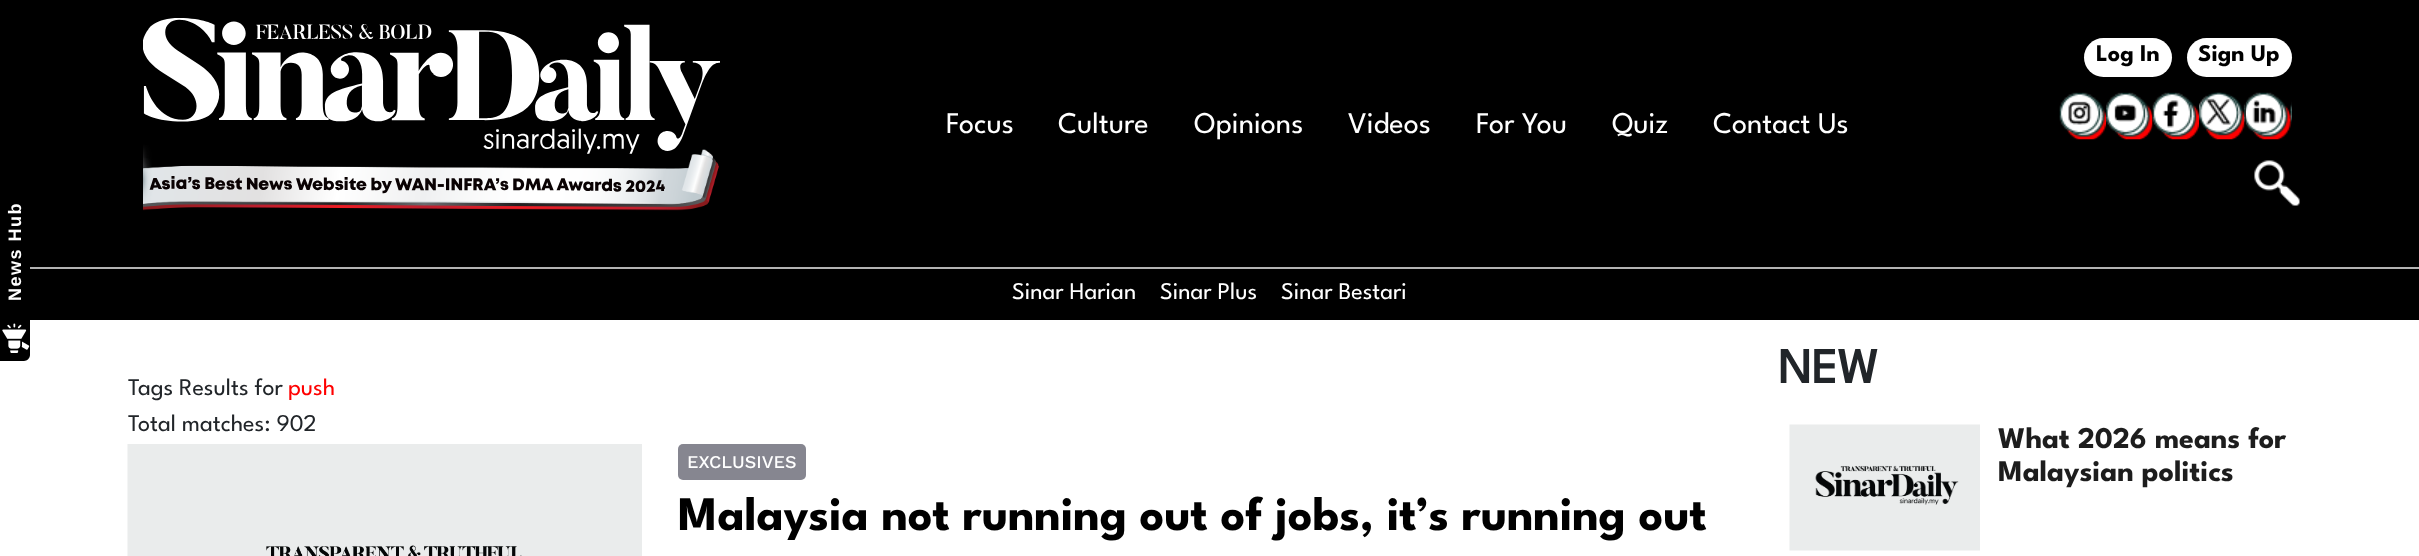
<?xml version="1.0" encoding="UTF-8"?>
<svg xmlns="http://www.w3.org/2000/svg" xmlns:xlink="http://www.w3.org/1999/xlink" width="2419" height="556">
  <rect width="100%" height="100%" fill="#ffffff" />
  <rect width="2419" height="320" fill="#000000" />
  <path d="M 0 361 v -195 h 24 c 3 0 6 2 6 6 v 183 c 0 3 -3 6 -6 6 z" fill="#000000" />
  <image x="2" y="323" width="28" height="30" xlink:href="image1.png" />
  <rect x="30" y="267" width="2389" height="2" fill="#b3b3b3" />
  <image x="143" y="18" width="577" height="193" xlink:href="image2.png" />
  <rect x="2084" y="38" width="88" height="39" rx="19.5" fill="#ffffff" />
  <rect x="2187" y="38" width="105" height="39" rx="19.5" fill="#ffffff" />
  <image x="2059" y="92" width="47" height="48" xlink:href="image3.png" />
  <image x="2106" y="92" width="47" height="48" xlink:href="image4.png" />
  <image x="2152" y="92" width="47" height="48" xlink:href="image5.png" />
  <image x="2199" y="92" width="47" height="48" xlink:href="image6.png" />
  <image x="2245" y="92" width="47" height="48" xlink:href="image7.png" />
  <image x="2254" y="160" width="46" height="46" xlink:href="image8.png" />
  <image x="127" y="444" width="515" height="112" xlink:href="image9.png" />
  <rect x="678" y="444" width="128" height="36" rx="5" fill="#868690" />
  <image x="1789" y="424" width="191" height="127" xlink:href="image10.png" />
  <text x="21" y="301" transform="rotate(-90 21 301)" style="font-family: Liberation Sans; font-size: 18px; font-weight: bold; letter-spacing: 1.5px; fill: #ffffff">News Hub</text>
  <text x="2096" y="61" style="font-family: League Spartan; font-size: 24px; font-weight: bold; fill: #000000">Log In</text>
  <text x="2198" y="61" style="font-family: League Spartan; font-size: 24px; font-weight: bold; fill: #000000">Sign Up</text>
  <text x="946" y="133" style="font-family: League Spartan; font-size: 30px; fill: #ffffff">Focus</text>
  <text x="1058" y="133" style="font-family: League Spartan; font-size: 30px; fill: #ffffff">Culture</text>
  <text x="1194" y="133" style="font-family: League Spartan; font-size: 30px; fill: #ffffff">Opinions</text>
  <text x="1348" y="133" style="font-family: League Spartan; font-size: 30px; fill: #ffffff">Videos</text>
  <text x="1476" y="133" style="font-family: League Spartan; font-size: 30px; fill: #ffffff">For You</text>
  <text x="1612" y="133" style="font-family: League Spartan; font-size: 30px; fill: #ffffff">Quiz</text>
  <text x="1713" y="133" style="font-family: League Spartan; font-size: 30px; fill: #ffffff">Contact Us</text>
  <text x="1012" y="299" style="font-family: League Spartan; font-size: 24px; fill: #ffffff">Sinar Harian</text>
  <text x="1160" y="299" style="font-family: League Spartan; font-size: 24px; fill: #ffffff">Sinar Plus</text>
  <text x="1281" y="299" style="font-family: League Spartan; font-size: 24px; fill: #ffffff">Sinar Bestari</text>
  <text x="128" y="395" style="font-family: League Spartan; font-size: 24px; fill: #212529">Tags Results for</text>
  <text x="288" y="395" style="font-family: League Spartan; font-size: 24px; fill: #ff0000">push</text>
  <text x="128" y="431" style="font-family: League Spartan; font-size: 24px; fill: #212529">Total matches: 902</text>
  <text x="687" y="468" style="font-family: Work Sans; font-size: 18px; font-weight: 500; fill: #ffffff">EXCLUSIVES</text>
  <text x="678" y="530" style="font-family: League Spartan; font-size: 48px; font-weight: bold; fill: #000000">Malaysia not running out of jobs, it’s running out</text>
  <text x="1778" y="383" style="font-family: 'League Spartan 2'; font-size: 49.5px; font-weight: bold; fill: #212529">NEW</text>
  <text x="1998" y="448" style="font-family: League Spartan; font-size: 30px; font-weight: bold; fill: #1d1d1d">What 2026 means for</text>
  <text x="1998" y="481" style="font-family: League Spartan; font-size: 30px; font-weight: bold; fill: #1d1d1d">Malaysian politics</text>
</svg>
